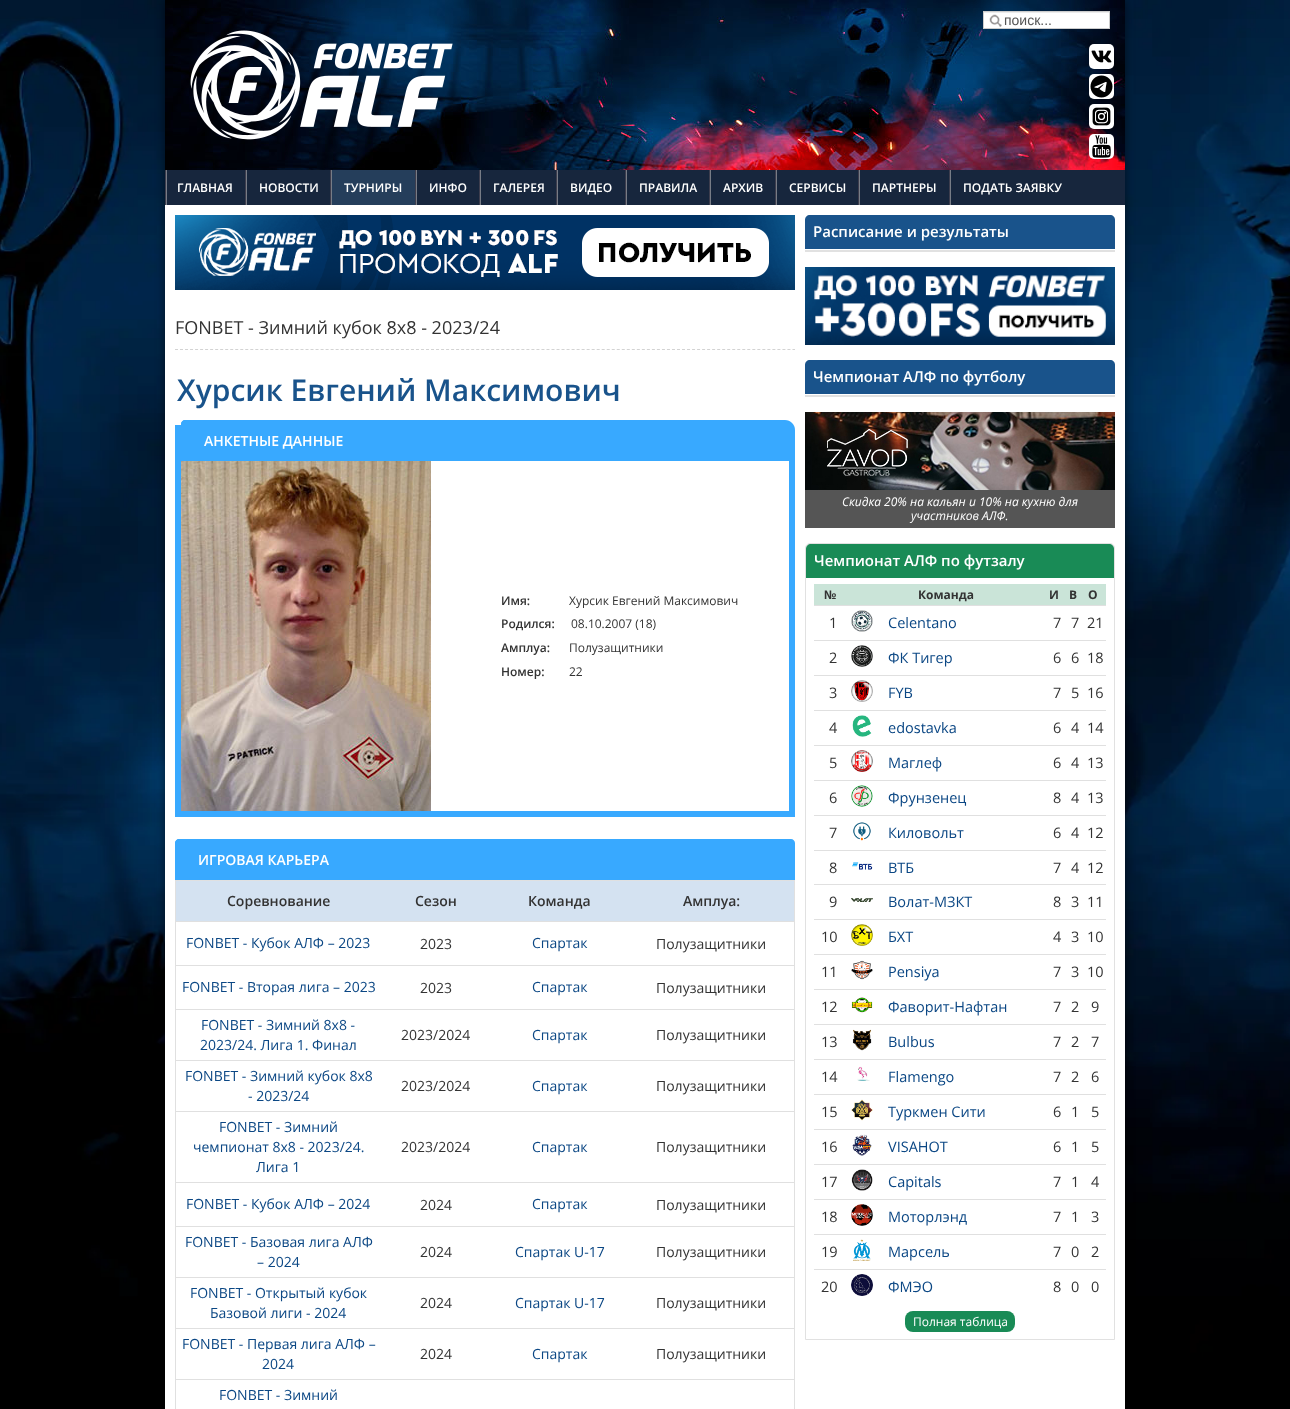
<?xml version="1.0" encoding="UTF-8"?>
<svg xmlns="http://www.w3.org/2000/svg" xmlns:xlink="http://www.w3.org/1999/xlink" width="1290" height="1409">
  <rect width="100%" height="100%" fill="#ffffff" />
  <image x="0" y="0" width="1290" height="1409" xlink:href="image1.png" />
  <rect x="165" width="960" height="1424" fill="#000000" fill-opacity="0.5" filter="blur(5px)" />
  <image x="165" y="0" width="960" height="170" xlink:href="image2.png" />
  <rect x="984" y="13" width="125" height="15" fill="#ffffff" />
  <image x="989" y="14" width="13" height="13" xlink:href="image3.png" />
  <rect x="984" y="12" width="125" height="1" fill="#ececec" />
  <rect x="983.5" y="11.5" width="126" height="17" fill="none" stroke="#cccccc" />
  <rect x="1089" y="44" width="25" height="25" rx="5" fill="#ffffff" />
  <image x="1091" y="50" width="21" height="13" xlink:href="image4.png" />
  <rect x="1089" y="74" width="25" height="25" rx="5" fill="#ffffff" />
  <image x="1090" y="75" width="23" height="23" xlink:href="image5.png" />
  <rect x="1089" y="104" width="25" height="25" rx="5" fill="#ffffff" />
  <image x="1092" y="107" width="19" height="19" xlink:href="image6.png" />
  <rect x="1089" y="134" width="25" height="25" rx="5" fill="#ffffff" />
  <image x="1092" y="135" width="19" height="23" xlink:href="image7.png" />
  <image x="190" y="30" width="263" height="110" xlink:href="image8.png" />
  <rect x="165" y="170" width="960" height="35" fill="#17263d" />
  <image x="165" y="170" width="2" height="35" xlink:href="image9.png" />
  <image x="245" y="170" width="2" height="35" xlink:href="image9.png" />
  <image x="330" y="170" width="2" height="35" xlink:href="image9.png" />
  <rect x="332" y="170" width="83" height="35" fill="#253e5b" />
  <image x="415" y="170" width="2" height="35" xlink:href="image9.png" />
  <image x="479" y="170" width="2" height="35" xlink:href="image9.png" />
  <image x="556" y="170" width="2" height="35" xlink:href="image9.png" />
  <image x="625" y="170" width="2" height="35" xlink:href="image9.png" />
  <image x="709" y="170" width="2" height="35" xlink:href="image9.png" />
  <image x="775" y="170" width="2" height="35" xlink:href="image9.png" />
  <image x="858" y="170" width="2" height="35" xlink:href="image9.png" />
  <image x="949" y="170" width="2" height="35" xlink:href="image9.png" />
  <rect x="165" y="205" width="960" height="1204" fill="#ffffff" />
  <image x="175" y="215" width="620" height="75" xlink:href="image10.png" />
  <path d="M 175 349.5 h 620" fill="none" stroke="#d3d3d3" stroke-dasharray="3 2.02" />
  <rect x="175" y="425" width="6" height="392" fill="#38a9ff" />
  <path d="M 185 420 h 600 c 5.5 0 10 4.5 10 10 v 31 h -614 v -37 c 0 -2 2 -4 4 -4 z" fill="#38a9ff" />
  <path d="M 185 420 h 2 v 41 h -6 v -37 c 0 -2 2 -4 4 -4 z" fill="#38a9ff" />
  <rect x="181" y="811" width="303" height="6" fill="#38a9ff" />
  <image x="181" y="461" width="250" height="350" xlink:href="image11.png" />
  <rect x="789" y="461" width="6" height="356" fill="#38a9ff" />
  <rect x="484" y="811" width="311" height="6" fill="#38a9ff" />
  <path d="M 179 839 h 612 c 2 0 4 2 4 4 v 37 h -620 v -37 c 0 -2 2 -4 4 -4 z" fill="#38a9ff" />
  <path d="M 179 839 h 2 v 41 h -6 v -37 c 0 -2 2 -4 4 -4 z" fill="#38a9ff" />
  <rect x="175" y="880" width="620" height="1" fill="#e0e0e0" />
  <rect x="794" y="880" width="1" height="529" fill="#e0e0e0" />
  <rect x="175" y="880" width="1" height="529" fill="#e0e0e0" />
  <rect x="176" y="881" width="618" height="40" fill="#d4e2f1" />
  <rect x="175" y="921" width="620" height="1" fill="#e0e0e0" />
  <rect x="175" y="965" width="620" height="1" fill="#e0e0e0" />
  <rect x="175" y="1009" width="620" height="1" fill="#e0e0e0" />
  <rect x="175" y="1060" width="620" height="1" fill="#e0e0e0" />
  <rect x="175" y="1111" width="620" height="1" fill="#e0e0e0" />
  <rect x="175" y="1182" width="620" height="1" fill="#e0e0e0" />
  <rect x="175" y="1226" width="620" height="1" fill="#e0e0e0" />
  <rect x="175" y="1277" width="620" height="1" fill="#e0e0e0" />
  <rect x="175" y="1328" width="620" height="1" fill="#e0e0e0" />
  <rect x="175" y="1379" width="620" height="1" fill="#e0e0e0" />
  <path d="M 810 215 h 300 c 3 0 5 2 5 5 v 29 h -310 v -29 c 0 -3 2 -5 5 -5 z" fill="#19538b" />
  <rect x="805" y="250" width="310" height="2" fill="#e1e1e1" />
  <image x="805" y="267" width="310" height="78" xlink:href="image12.png" />
  <path d="M 810 360 h 300 c 3 0 5 2 5 5 v 29 h -310 v -29 c 0 -3 2 -5 5 -5 z" fill="#19538b" />
  <rect x="805" y="395" width="310" height="2" fill="#e1e1e1" />
  <image x="805" y="412" width="310" height="78" xlink:href="image13.png" />
  <rect x="805" y="490" width="310" height="38" fill="#555555" />
  <path d="M 810 543.5 h 300 c 2.5 0 4.5 2 4.5 4.5 v 791.5 h -309 v -791.5 c 0 -2.5 2 -4.5 4.5 -4.5 z" fill="none" stroke="#e1e1e1" />
  <path d="M 811 544 h 298 c 3 0 5 2 5 5 v 29 h -308 v -29 c 0 -3 2 -5 5 -5 z" fill="#198b56" />
  <rect x="814" y="584" width="292" height="21" fill="#cae4d8" />
  <rect x="814" y="605" width="292" height="1" fill="#e0e0e0" />
  <image x="851" y="610" width="22" height="22" xlink:href="image14.png" />
  <rect x="814" y="640" width="292" height="1" fill="#e0e0e0" />
  <image x="851" y="645" width="22" height="22" xlink:href="image15.png" />
  <rect x="814" y="675" width="292" height="1" fill="#e0e0e0" />
  <image x="851" y="680" width="22" height="22" xlink:href="image16.png" />
  <rect x="814" y="710" width="292" height="1" fill="#e0e0e0" />
  <image x="852" y="715" width="20" height="22" xlink:href="image17.png" />
  <rect x="814" y="745" width="292" height="1" fill="#e0e0e0" />
  <image x="851" y="750" width="22" height="22" xlink:href="image18.png" />
  <rect x="814" y="780" width="292" height="1" fill="#e0e0e0" />
  <image x="851" y="785" width="22" height="22" xlink:href="image19.png" />
  <rect x="814" y="815" width="292" height="1" fill="#e0e0e0" />
  <image x="853" y="822" width="18" height="19" xlink:href="image20.png" />
  <rect x="814" y="850" width="292" height="1" fill="#e0e0e0" />
  <image x="852" y="862" width="21" height="8" xlink:href="image21.png" />
  <rect x="814" y="884" width="292" height="1" fill="#e0e0e0" />
  <image x="851" y="898" width="22" height="4" xlink:href="image22.png" />
  <rect x="814" y="919" width="292" height="1" fill="#e0e0e0" />
  <image x="851" y="924" width="22" height="22" xlink:href="image23.png" />
  <rect x="814" y="954" width="292" height="1" fill="#e0e0e0" />
  <image x="851" y="960" width="22" height="20" xlink:href="image24.png" />
  <rect x="814" y="989" width="292" height="1" fill="#e0e0e0" />
  <image x="851" y="997" width="22" height="16" xlink:href="image25.png" />
  <rect x="814" y="1024" width="292" height="1" fill="#e0e0e0" />
  <image x="852" y="1029" width="20" height="22" xlink:href="image26.png" />
  <rect x="814" y="1059" width="292" height="1" fill="#e0e0e0" />
  <image x="857" y="1066" width="13" height="15" xlink:href="image27.png" />
  <rect x="814" y="1094" width="292" height="1" fill="#e0e0e0" />
  <image x="851" y="1099" width="22" height="22" xlink:href="image28.png" />
  <rect x="814" y="1129" width="292" height="1" fill="#e0e0e0" />
  <image x="852" y="1134" width="20" height="22" xlink:href="image29.png" />
  <rect x="814" y="1164" width="292" height="1" fill="#e0e0e0" />
  <image x="851" y="1169" width="22" height="22" xlink:href="image30.png" />
  <rect x="814" y="1199" width="292" height="1" fill="#e0e0e0" />
  <image x="851" y="1204" width="22" height="22" xlink:href="image31.png" />
  <rect x="814" y="1234" width="292" height="1" fill="#e0e0e0" />
  <image x="853" y="1239" width="18" height="22" xlink:href="image32.png" />
  <rect x="814" y="1269" width="292" height="1" fill="#e0e0e0" />
  <image x="851" y="1274" width="22" height="22" xlink:href="image33.png" />
  <rect x="905" y="1311" width="110" height="21" rx="8" fill="#198b56" />
  <text x="1004" y="25" style="font-family: Liberation Sans; font-size: 14px; fill: #555555">поиск...</text>
  <text x="177" y="192" style="font-family: Open Sans; font-size: 12px; font-weight: 600; fill: #ffffff">ГЛАВНАЯ</text>
  <text x="259" y="192" style="font-family: Open Sans; font-size: 12px; font-weight: 600; fill: #ffffff">НОВОСТИ</text>
  <text x="344" y="192" style="font-family: Open Sans; font-size: 12px; font-weight: 600; fill: #ffffff">ТУРНИРЫ</text>
  <text x="429" y="192" style="font-family: Open Sans; font-size: 12px; font-weight: 600; fill: #ffffff">ИНФО</text>
  <text x="493" y="192" style="font-family: Open Sans; font-size: 12px; font-weight: 600; fill: #ffffff">ГАЛЕРЕЯ</text>
  <text x="570" y="192" style="font-family: Open Sans; font-size: 12px; font-weight: 600; fill: #ffffff">ВИДЕО</text>
  <text x="639" y="192" style="font-family: Open Sans; font-size: 12px; font-weight: 600; fill: #ffffff">ПРАВИЛА</text>
  <text x="723" y="192" style="font-family: Open Sans; font-size: 12px; font-weight: 600; fill: #ffffff">АРХИВ</text>
  <text x="789" y="192" style="font-family: Open Sans; font-size: 12px; font-weight: 600; fill: #ffffff">СЕРВИСЫ</text>
  <text x="872" y="192" style="font-family: Open Sans; font-size: 12px; font-weight: 600; fill: #ffffff">ПАРТНЕРЫ</text>
  <text x="963" y="192" style="font-family: Open Sans; font-size: 12px; font-weight: 600; fill: #ffffff">ПОДАТЬ ЗАЯВКУ</text>
  <text x="175" y="334" style="font-family: Open Sans; font-size: 18px; fill: #333333">FONBET - Зимний кубок 8х8 - 2023/24</text>
  <text x="177" y="401" style="font-family: Open Sans; font-size: 30px; font-weight: 600; fill: #19538b">Хурсик Евгений Максимович</text>
  <text x="204" y="446" style="font-family: Open Sans; font-size: 14px; font-weight: 600; fill: #ffffff">АНКЕТНЫЕ ДАННЫЕ</text>
  <text x="501" y="605" style="font-family: Open Sans; font-size: 12px; font-weight: 600; fill: #333333">Имя:</text>
  <text x="569" y="605" style="font-family: Open Sans; font-size: 12px; fill: #333333">Хурсик Евгений Максимович</text>
  <text x="501" y="628" style="font-family: Open Sans; font-size: 12px; font-weight: 600; fill: #333333">Родился:</text>
  <text x="571" y="628" style="font-family: Open Sans; font-size: 12px; fill: #333333">08.10.2007 (18)</text>
  <text x="501" y="652" style="font-family: Open Sans; font-size: 12px; font-weight: 600; fill: #333333">Амплуа:</text>
  <text x="569" y="652" style="font-family: Open Sans; font-size: 12px; fill: #333333">Полузащитники</text>
  <text x="501" y="676" style="font-family: Open Sans; font-size: 12px; font-weight: 600; fill: #333333">Номер:</text>
  <text x="569" y="676" style="font-family: Open Sans; font-size: 12px; fill: #333333">22</text>
  <text x="198" y="865" style="font-family: Open Sans; font-size: 14px; font-weight: 600; fill: #ffffff">ИГРОВАЯ КАРЬЕРА</text>
  <text x="227" y="906" style="font-family: Open Sans; font-size: 14px; font-weight: 600; fill: #333333">Соревнование</text>
  <text x="415" y="906" style="font-family: Open Sans; font-size: 14px; font-weight: 600; fill: #333333">Сезон</text>
  <text x="528" y="906" style="font-family: Open Sans; font-size: 14px; font-weight: 600; fill: #333333">Команда</text>
  <text x="683" y="906" style="font-family: Open Sans; font-size: 14px; font-weight: 600; fill: #333333">Амплуа:</text>
  <text x="186" y="948" style="font-family: Open Sans; font-size: 14px; fill: #0b4784">FONBET - Кубок АЛФ – 2023</text>
  <text x="420" y="949" style="font-family: Open Sans; font-size: 14px; fill: #333333">2023</text>
  <text x="532" y="948" style="font-family: Open Sans; font-size: 14px; fill: #0b4784">Спартак</text>
  <text x="656" y="949" style="font-family: Open Sans; font-size: 14px; fill: #333333">Полузащитники</text>
  <text x="182" y="992" style="font-family: Open Sans; font-size: 14px; fill: #0b4784">FONBET - Вторая лига – 2023</text>
  <text x="420" y="993" style="font-family: Open Sans; font-size: 14px; fill: #333333">2023</text>
  <text x="532" y="992" style="font-family: Open Sans; font-size: 14px; fill: #0b4784">Спартак</text>
  <text x="656" y="993" style="font-family: Open Sans; font-size: 14px; fill: #333333">Полузащитники</text>
  <text x="201" y="1030" style="font-family: Open Sans; font-size: 14px; fill: #0b4784">FONBET - Зимний 8х8 -</text>
  <text x="200" y="1050" style="font-family: Open Sans; font-size: 14px; fill: #0b4784">2023/24. Лига 1. Финал</text>
  <text x="401" y="1040" style="font-family: Open Sans; font-size: 14px; fill: #333333">2023/2024</text>
  <text x="532" y="1040" style="font-family: Open Sans; font-size: 14px; fill: #0b4784">Спартак</text>
  <text x="656" y="1040" style="font-family: Open Sans; font-size: 14px; fill: #333333">Полузащитники</text>
  <text x="185" y="1081" style="font-family: Open Sans; font-size: 14px; fill: #0b4784">FONBET - Зимний кубок 8х8</text>
  <text x="248" y="1101" style="font-family: Open Sans; font-size: 14px; fill: #0b4784">- 2023/24</text>
  <text x="401" y="1091" style="font-family: Open Sans; font-size: 14px; fill: #333333">2023/2024</text>
  <text x="532" y="1091" style="font-family: Open Sans; font-size: 14px; fill: #0b4784">Спартак</text>
  <text x="656" y="1091" style="font-family: Open Sans; font-size: 14px; fill: #333333">Полузащитники</text>
  <text x="219" y="1132" style="font-family: Open Sans; font-size: 14px; fill: #0b4784">FONBET - Зимний</text>
  <text x="193" y="1152" style="font-family: Open Sans; font-size: 14px; fill: #0b4784">чемпионат 8х8 - 2023/24.</text>
  <text x="256" y="1172" style="font-family: Open Sans; font-size: 14px; fill: #0b4784">Лига 1</text>
  <text x="401" y="1152" style="font-family: Open Sans; font-size: 14px; fill: #333333">2023/2024</text>
  <text x="532" y="1152" style="font-family: Open Sans; font-size: 14px; fill: #0b4784">Спартак</text>
  <text x="656" y="1152" style="font-family: Open Sans; font-size: 14px; fill: #333333">Полузащитники</text>
  <text x="186" y="1209" style="font-family: Open Sans; font-size: 14px; fill: #0b4784">FONBET - Кубок АЛФ – 2024</text>
  <text x="420" y="1210" style="font-family: Open Sans; font-size: 14px; fill: #333333">2024</text>
  <text x="532" y="1209" style="font-family: Open Sans; font-size: 14px; fill: #0b4784">Спартак</text>
  <text x="656" y="1210" style="font-family: Open Sans; font-size: 14px; fill: #333333">Полузащитники</text>
  <text x="185" y="1247" style="font-family: Open Sans; font-size: 14px; fill: #0b4784">FONBET - Базовая лига АЛФ</text>
  <text x="257" y="1267" style="font-family: Open Sans; font-size: 14px; fill: #0b4784">– 2024</text>
  <text x="420" y="1257" style="font-family: Open Sans; font-size: 14px; fill: #333333">2024</text>
  <text x="515" y="1257" style="font-family: Open Sans; font-size: 14px; fill: #0b4784">Спартак U-17</text>
  <text x="656" y="1257" style="font-family: Open Sans; font-size: 14px; fill: #333333">Полузащитники</text>
  <text x="190" y="1298" style="font-family: Open Sans; font-size: 14px; fill: #0b4784">FONBET - Открытый кубок</text>
  <text x="210" y="1318" style="font-family: Open Sans; font-size: 14px; fill: #0b4784">Базовой лиги - 2024</text>
  <text x="420" y="1308" style="font-family: Open Sans; font-size: 14px; fill: #333333">2024</text>
  <text x="515" y="1308" style="font-family: Open Sans; font-size: 14px; fill: #0b4784">Спартак U-17</text>
  <text x="656" y="1308" style="font-family: Open Sans; font-size: 14px; fill: #333333">Полузащитники</text>
  <text x="182" y="1349" style="font-family: Open Sans; font-size: 14px; fill: #0b4784">FONBET - Первая лига АЛФ –</text>
  <text x="262" y="1369" style="font-family: Open Sans; font-size: 14px; fill: #0b4784">2024</text>
  <text x="420" y="1359" style="font-family: Open Sans; font-size: 14px; fill: #333333">2024</text>
  <text x="532" y="1359" style="font-family: Open Sans; font-size: 14px; fill: #0b4784">Спартак</text>
  <text x="656" y="1359" style="font-family: Open Sans; font-size: 14px; fill: #333333">Полузащитники</text>
  <text x="219" y="1400" style="font-family: Open Sans; font-size: 14px; fill: #0b4784">FONBET - Зимний</text>
  <text x="813" y="237" style="font-family: Open Sans; font-size: 15px; font-weight: 600; fill: #ffffff">Расписание и результаты</text>
  <text x="813" y="382" style="font-family: Open Sans; font-size: 15px; font-weight: 600; fill: #ffffff">Чемпионат АЛФ по футболу</text>
  <text x="842" y="506" style="font-family: Open Sans; font-size: 12px; font-style: italic; fill: #ffffff">Скидка 20% на кальян и 10% на кухню для</text>
  <text x="911" y="520" style="font-family: Open Sans; font-size: 12px; font-style: italic; fill: #ffffff">участников АЛФ.</text>
  <text x="814" y="566" style="font-family: Open Sans; font-size: 15px; font-weight: 600; fill: #ffffff">Чемпионат АЛФ по футзалу</text>
  <text x="824" y="599" style="font-family: Open Sans; font-size: 12px; font-weight: bold; fill: #333333">№</text>
  <text x="918" y="599" style="font-family: Open Sans; font-size: 12px; font-weight: bold; fill: #333333">Команда</text>
  <text x="1049" y="599" style="font-family: Open Sans; font-size: 12px; font-weight: bold; fill: #333333">И</text>
  <text x="1069" y="599" style="font-family: Open Sans; font-size: 12px; font-weight: bold; fill: #333333">В</text>
  <text x="1088" y="599" style="font-family: Open Sans; font-size: 12px; font-weight: bold; fill: #333333">О</text>
  <text x="829" y="628" style="font-family: Open Sans; font-size: 14.5px; fill: #333333">1</text>
  <text x="888" y="628" style="font-family: Open Sans; font-size: 14.5px; fill: #0b4784">Celentano</text>
  <text x="1053" y="628" style="font-family: Open Sans; font-size: 14.5px; fill: #333333">7</text>
  <text x="1071" y="628" style="font-family: Open Sans; font-size: 14.5px; fill: #333333">7</text>
  <text x="1087" y="628" style="font-family: Open Sans; font-size: 14.5px; fill: #333333">21</text>
  <text x="829" y="663" style="font-family: Open Sans; font-size: 14.5px; fill: #333333">2</text>
  <text x="888" y="663" style="font-family: Open Sans; font-size: 14.5px; fill: #0b4784">ФК Тигер</text>
  <text x="1053" y="663" style="font-family: Open Sans; font-size: 14.5px; fill: #333333">6</text>
  <text x="1071" y="663" style="font-family: Open Sans; font-size: 14.5px; fill: #333333">6</text>
  <text x="1087" y="663" style="font-family: Open Sans; font-size: 14.5px; fill: #333333">18</text>
  <text x="829" y="698" style="font-family: Open Sans; font-size: 14.5px; fill: #333333">3</text>
  <text x="888" y="698" style="font-family: Open Sans; font-size: 14.5px; fill: #0b4784">FYB</text>
  <text x="1053" y="698" style="font-family: Open Sans; font-size: 14.5px; fill: #333333">7</text>
  <text x="1071" y="698" style="font-family: Open Sans; font-size: 14.5px; fill: #333333">5</text>
  <text x="1087" y="698" style="font-family: Open Sans; font-size: 14.5px; fill: #333333">16</text>
  <text x="829" y="733" style="font-family: Open Sans; font-size: 14.5px; fill: #333333">4</text>
  <text x="888" y="733" style="font-family: Open Sans; font-size: 14.5px; fill: #0b4784">edostavka</text>
  <text x="1053" y="733" style="font-family: Open Sans; font-size: 14.5px; fill: #333333">6</text>
  <text x="1071" y="733" style="font-family: Open Sans; font-size: 14.5px; fill: #333333">4</text>
  <text x="1087" y="733" style="font-family: Open Sans; font-size: 14.5px; fill: #333333">14</text>
  <text x="829" y="768" style="font-family: Open Sans; font-size: 14.5px; fill: #333333">5</text>
  <text x="888" y="768" style="font-family: Open Sans; font-size: 14.5px; fill: #0b4784">Маглеф</text>
  <text x="1053" y="768" style="font-family: Open Sans; font-size: 14.5px; fill: #333333">6</text>
  <text x="1071" y="768" style="font-family: Open Sans; font-size: 14.5px; fill: #333333">4</text>
  <text x="1087" y="768" style="font-family: Open Sans; font-size: 14.5px; fill: #333333">13</text>
  <text x="829" y="803" style="font-family: Open Sans; font-size: 14.5px; fill: #333333">6</text>
  <text x="888" y="803" style="font-family: Open Sans; font-size: 14.5px; fill: #0b4784">Фрунзенец</text>
  <text x="1053" y="803" style="font-family: Open Sans; font-size: 14.5px; fill: #333333">8</text>
  <text x="1071" y="803" style="font-family: Open Sans; font-size: 14.5px; fill: #333333">4</text>
  <text x="1087" y="803" style="font-family: Open Sans; font-size: 14.5px; fill: #333333">13</text>
  <text x="829" y="838" style="font-family: Open Sans; font-size: 14.5px; fill: #333333">7</text>
  <text x="888" y="838" style="font-family: Open Sans; font-size: 14.5px; fill: #0b4784">Киловольт</text>
  <text x="1053" y="838" style="font-family: Open Sans; font-size: 14.5px; fill: #333333">6</text>
  <text x="1071" y="838" style="font-family: Open Sans; font-size: 14.5px; fill: #333333">4</text>
  <text x="1087" y="838" style="font-family: Open Sans; font-size: 14.5px; fill: #333333">12</text>
  <text x="829" y="873" style="font-family: Open Sans; font-size: 14.5px; fill: #333333">8</text>
  <text x="888" y="873" style="font-family: Open Sans; font-size: 14.5px; fill: #0b4784">ВТБ</text>
  <text x="1053" y="873" style="font-family: Open Sans; font-size: 14.5px; fill: #333333">7</text>
  <text x="1071" y="873" style="font-family: Open Sans; font-size: 14.5px; fill: #333333">4</text>
  <text x="1087" y="873" style="font-family: Open Sans; font-size: 14.5px; fill: #333333">12</text>
  <text x="829" y="907" style="font-family: Open Sans; font-size: 14.5px; fill: #333333">9</text>
  <text x="888" y="907" style="font-family: Open Sans; font-size: 14.5px; fill: #0b4784">Волат-МЗКТ</text>
  <text x="1053" y="907" style="font-family: Open Sans; font-size: 14.5px; fill: #333333">8</text>
  <text x="1071" y="907" style="font-family: Open Sans; font-size: 14.5px; fill: #333333">3</text>
  <text x="1087" y="907" style="font-family: Open Sans; font-size: 14.5px; fill: #333333">11</text>
  <text x="821" y="942" style="font-family: Open Sans; font-size: 14.5px; fill: #333333">10</text>
  <text x="888" y="942" style="font-family: Open Sans; font-size: 14.5px; fill: #0b4784">БХТ</text>
  <text x="1053" y="942" style="font-family: Open Sans; font-size: 14.5px; fill: #333333">4</text>
  <text x="1071" y="942" style="font-family: Open Sans; font-size: 14.5px; fill: #333333">3</text>
  <text x="1087" y="942" style="font-family: Open Sans; font-size: 14.5px; fill: #333333">10</text>
  <text x="821" y="977" style="font-family: Open Sans; font-size: 14.5px; fill: #333333">11</text>
  <text x="888" y="977" style="font-family: Open Sans; font-size: 14.5px; fill: #0b4784">Pensiya</text>
  <text x="1053" y="977" style="font-family: Open Sans; font-size: 14.5px; fill: #333333">7</text>
  <text x="1071" y="977" style="font-family: Open Sans; font-size: 14.5px; fill: #333333">3</text>
  <text x="1087" y="977" style="font-family: Open Sans; font-size: 14.5px; fill: #333333">10</text>
  <text x="821" y="1012" style="font-family: Open Sans; font-size: 14.5px; fill: #333333">12</text>
  <text x="888" y="1012" style="font-family: Open Sans; font-size: 14.5px; fill: #0b4784">Фаворит-Нафтан</text>
  <text x="1053" y="1012" style="font-family: Open Sans; font-size: 14.5px; fill: #333333">7</text>
  <text x="1071" y="1012" style="font-family: Open Sans; font-size: 14.5px; fill: #333333">2</text>
  <text x="1091" y="1012" style="font-family: Open Sans; font-size: 14.5px; fill: #333333">9</text>
  <text x="821" y="1047" style="font-family: Open Sans; font-size: 14.5px; fill: #333333">13</text>
  <text x="888" y="1047" style="font-family: Open Sans; font-size: 14.5px; fill: #0b4784">Bulbus</text>
  <text x="1053" y="1047" style="font-family: Open Sans; font-size: 14.5px; fill: #333333">7</text>
  <text x="1071" y="1047" style="font-family: Open Sans; font-size: 14.5px; fill: #333333">2</text>
  <text x="1091" y="1047" style="font-family: Open Sans; font-size: 14.5px; fill: #333333">7</text>
  <text x="821" y="1082" style="font-family: Open Sans; font-size: 14.5px; fill: #333333">14</text>
  <text x="888" y="1082" style="font-family: Open Sans; font-size: 14.5px; fill: #0b4784">Flamengo</text>
  <text x="1053" y="1082" style="font-family: Open Sans; font-size: 14.5px; fill: #333333">7</text>
  <text x="1071" y="1082" style="font-family: Open Sans; font-size: 14.5px; fill: #333333">2</text>
  <text x="1091" y="1082" style="font-family: Open Sans; font-size: 14.5px; fill: #333333">6</text>
  <text x="821" y="1117" style="font-family: Open Sans; font-size: 14.5px; fill: #333333">15</text>
  <text x="888" y="1117" style="font-family: Open Sans; font-size: 14.5px; fill: #0b4784">Туркмен Сити</text>
  <text x="1053" y="1117" style="font-family: Open Sans; font-size: 14.5px; fill: #333333">6</text>
  <text x="1071" y="1117" style="font-family: Open Sans; font-size: 14.5px; fill: #333333">1</text>
  <text x="1091" y="1117" style="font-family: Open Sans; font-size: 14.5px; fill: #333333">5</text>
  <text x="821" y="1152" style="font-family: Open Sans; font-size: 14.5px; fill: #333333">16</text>
  <text x="888" y="1152" style="font-family: Open Sans; font-size: 14.5px; fill: #0b4784">VISAHOT</text>
  <text x="1053" y="1152" style="font-family: Open Sans; font-size: 14.5px; fill: #333333">6</text>
  <text x="1071" y="1152" style="font-family: Open Sans; font-size: 14.5px; fill: #333333">1</text>
  <text x="1091" y="1152" style="font-family: Open Sans; font-size: 14.5px; fill: #333333">5</text>
  <text x="821" y="1187" style="font-family: Open Sans; font-size: 14.5px; fill: #333333">17</text>
  <text x="888" y="1187" style="font-family: Open Sans; font-size: 14.5px; fill: #0b4784">Capitals</text>
  <text x="1053" y="1187" style="font-family: Open Sans; font-size: 14.5px; fill: #333333">7</text>
  <text x="1071" y="1187" style="font-family: Open Sans; font-size: 14.5px; fill: #333333">1</text>
  <text x="1091" y="1187" style="font-family: Open Sans; font-size: 14.5px; fill: #333333">4</text>
  <text x="821" y="1222" style="font-family: Open Sans; font-size: 14.5px; fill: #333333">18</text>
  <text x="888" y="1222" style="font-family: Open Sans; font-size: 14.5px; fill: #0b4784">Моторлэнд</text>
  <text x="1053" y="1222" style="font-family: Open Sans; font-size: 14.5px; fill: #333333">7</text>
  <text x="1071" y="1222" style="font-family: Open Sans; font-size: 14.5px; fill: #333333">1</text>
  <text x="1091" y="1222" style="font-family: Open Sans; font-size: 14.5px; fill: #333333">3</text>
  <text x="821" y="1257" style="font-family: Open Sans; font-size: 14.5px; fill: #333333">19</text>
  <text x="888" y="1257" style="font-family: Open Sans; font-size: 14.5px; fill: #0b4784">Марсель</text>
  <text x="1053" y="1257" style="font-family: Open Sans; font-size: 14.5px; fill: #333333">7</text>
  <text x="1071" y="1257" style="font-family: Open Sans; font-size: 14.5px; fill: #333333">0</text>
  <text x="1091" y="1257" style="font-family: Open Sans; font-size: 14.5px; fill: #333333">2</text>
  <text x="821" y="1292" style="font-family: Open Sans; font-size: 14.5px; fill: #333333">20</text>
  <text x="888" y="1292" style="font-family: Open Sans; font-size: 14.5px; fill: #0b4784">ФМЭО</text>
  <text x="1053" y="1292" style="font-family: Open Sans; font-size: 14.5px; fill: #333333">8</text>
  <text x="1071" y="1292" style="font-family: Open Sans; font-size: 14.5px; fill: #333333">0</text>
  <text x="1091" y="1292" style="font-family: Open Sans; font-size: 14.5px; fill: #333333">0</text>
  <text x="913" y="1326" style="font-family: Open Sans; font-size: 12px; fill: #ffffff">Полная таблица</text>
</svg>
